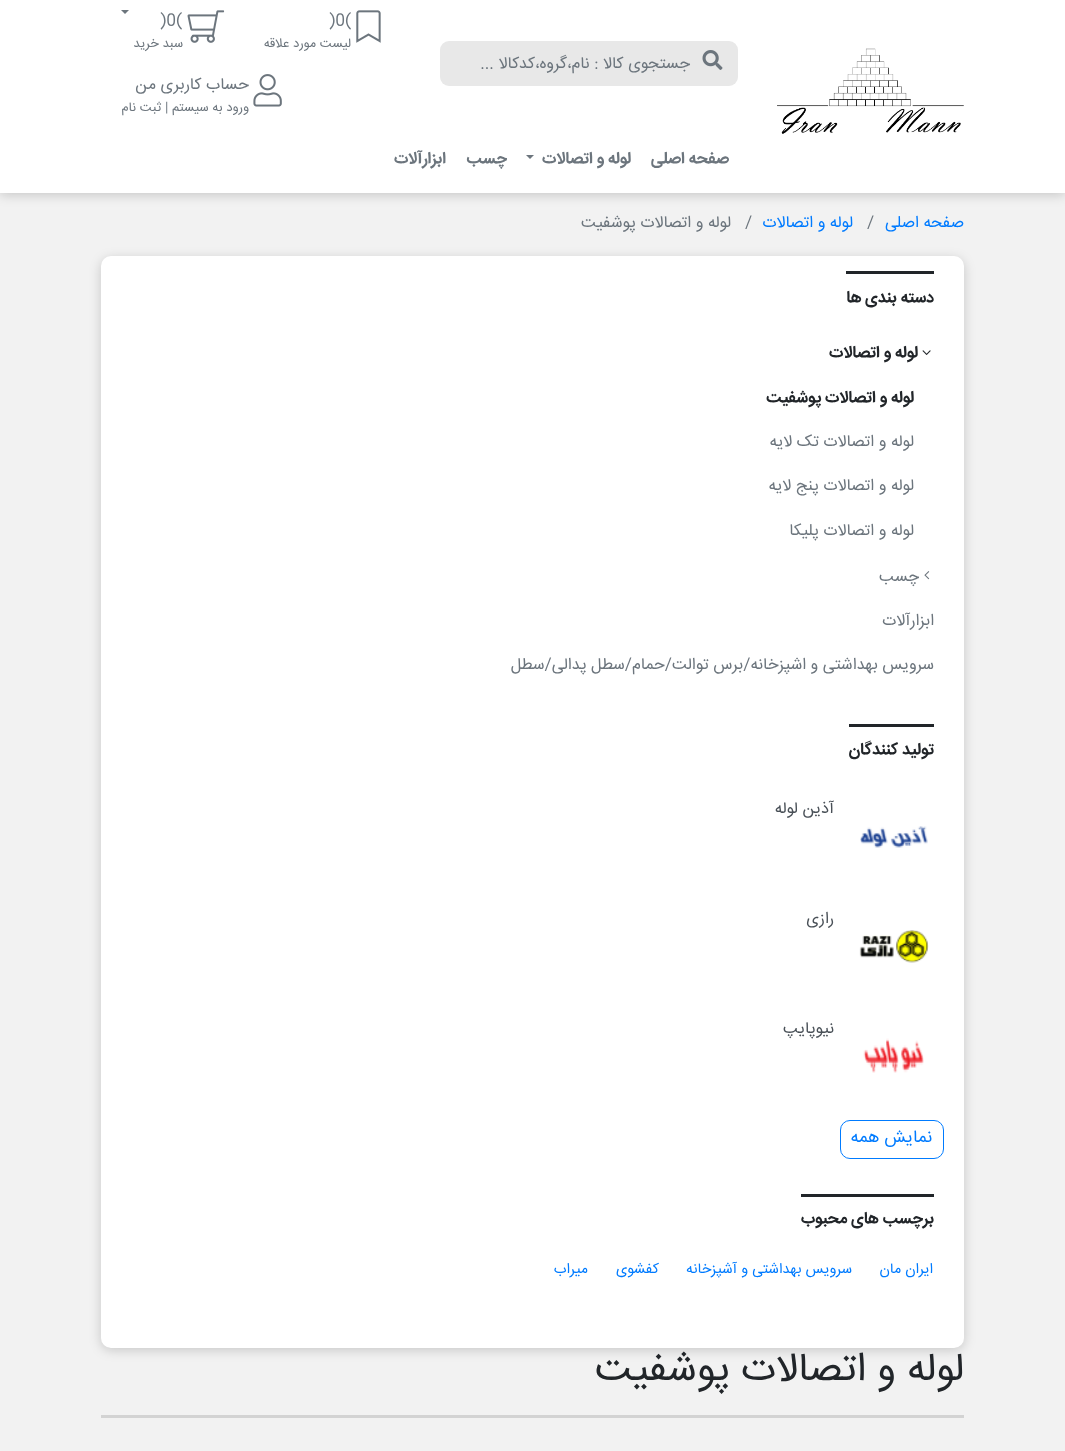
<?xml version="1.0" encoding="UTF-8"?>
<svg xmlns="http://www.w3.org/2000/svg" xmlns:xlink="http://www.w3.org/1999/xlink" width="1065" height="1451">
  <rect width="100%" height="100%" fill="#f2f2f2" />
  <rect y="3" width="1065" height="192" fill="#000000" fill-opacity="0.18" filter="blur(6px)" />
  <rect width="1065" height="193" fill="#ffffff" />
  <image x="777" y="48" width="187" height="86" xlink:href="image1.png" />
  <rect x="440" y="41" width="298" height="45" rx="9" fill="#e8e8e8" />
  <image x="702" y="50" width="21" height="20" xlink:href="image2.png" />
  <image x="356" y="10" width="25" height="33" xlink:href="image3.png" />
  <image x="187" y="10" width="38" height="33" xlink:href="image4.png" />
  <path d="M 121 10 h 8 l -4 4 z" fill="#6c757d" />
  <image x="253" y="74" width="29" height="33" xlink:href="image5.png" />
  <path d="M 526 155 h 8 l -4 4 z" fill="#6c757d" />
  <rect x="101" y="259" width="863" height="1091" rx="10" fill="#000000" fill-opacity="0.18" filter="blur(6px)" />
  <rect x="101" y="256" width="863" height="1092" rx="10" fill="#ffffff" />
  <rect x="846" y="271" width="88" height="3" fill="#212529" />
  <image x="922" y="350" width="9" height="5" xlink:href="image6.png" />
  <image x="924" y="571" width="6" height="9" xlink:href="image7.png" />
  <rect x="849" y="724" width="85" height="3" fill="#212529" />
  <image x="860" y="826" width="68" height="22" xlink:href="image8.png" />
  <image x="859" y="930" width="70" height="33" xlink:href="image9.png" />
  <image x="863" y="1038" width="61" height="35" xlink:href="image10.png" />
  <rect x="840.5" y="1120.5" width="103" height="38" rx="9.5" fill="none" stroke="#007bff" />
  <rect x="801" y="1194" width="133" height="3" fill="#212529" />
  <rect x="101" y="1415" width="863" height="3" fill="#d3d3d3" />
  <text x="690" y="68" style="font-family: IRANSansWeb; font-size: 16.25px; direction: rtl; fill: #6c757d">جستجوی کالا : نام،گروه،کدکالا ...</text>
  <text x="329" y="25" style="font-family: IRANSansWeb; font-size: 16.25px; fill: #6c757d">)0(</text>
  <text x="351" y="47" style="font-family: IRANSansWeb; font-size: 13px; direction: rtl; fill: #6c757d">لیست مورد علاقه</text>
  <text x="160" y="25" style="font-family: IRANSansWeb; font-size: 16.25px; fill: #6c757d">)0(</text>
  <text x="183" y="47" style="font-family: IRANSansWeb; font-size: 13px; direction: rtl; fill: #6c757d">سبد خرید</text>
  <text x="249" y="89" style="font-family: IRANSansWeb; font-size: 16.25px; direction: rtl; fill: #6c757d">حساب کاربری من</text>
  <text x="249" y="111" style="font-family: IRANSansWeb; font-size: 13px; direction: rtl; fill: #6c757d">ورود به سیستم | ثبت نام</text>
  <text x="729" y="163" style="font-family: IRANSansWeb; font-size: 16.25px; font-weight: bold; direction: rtl; fill: #6c757d">صفحه اصلی</text>
  <text x="631" y="163" style="font-family: IRANSansWeb; font-size: 16.25px; font-weight: bold; direction: rtl; fill: #6c757d">لوله و اتصالات</text>
  <text x="507" y="163" style="font-family: IRANSansWeb; font-size: 16.25px; font-weight: bold; direction: rtl; fill: #6c757d">چسب</text>
  <text x="446" y="163" style="font-family: IRANSansWeb; font-size: 16.25px; font-weight: bold; direction: rtl; fill: #6c757d">ابزارآلات</text>
  <text x="964" y="227" style="font-family: IRANSansWeb; font-size: 16.25px; direction: rtl; fill: #007bff">صفحه اصلی</text>
  <text x="867" y="227" style="font-family: IRANSansWeb; font-size: 16.25px; fill: #6c757d">/</text>
  <text x="853" y="227" style="font-family: IRANSansWeb; font-size: 16.25px; direction: rtl; fill: #007bff">لوله و اتصالات</text>
  <text x="745" y="227" style="font-family: IRANSansWeb; font-size: 16.25px; fill: #6c757d">/</text>
  <text x="731" y="227" style="font-family: IRANSansWeb; font-size: 16.25px; direction: rtl; fill: #6c757d">لوله و اتصالات پوشفیت</text>
  <text x="934" y="302" style="font-family: IRANSansWeb; font-size: 16.25px; font-weight: bold; direction: rtl; fill: #212529">دسته بندی ها</text>
  <text x="918" y="357" style="font-family: IRANSansWeb; font-size: 16.25px; font-weight: bold; direction: rtl; fill: #212529">لوله و اتصالات</text>
  <text x="914" y="402" style="font-family: IRANSansWeb; font-size: 16.25px; font-weight: bold; direction: rtl; fill: #212529">لوله و اتصالات پوشفیت</text>
  <text x="914" y="446" style="font-family: IRANSansWeb; font-size: 16.25px; direction: rtl; fill: #6c757d">لوله و اتصالات تک لایه</text>
  <text x="914" y="490" style="font-family: IRANSansWeb; font-size: 16.25px; direction: rtl; fill: #6c757d">لوله و اتصالات پنج لایه</text>
  <text x="914" y="535" style="font-family: IRANSansWeb; font-size: 16.25px; direction: rtl; fill: #6c757d">لوله و اتصالات پلیکا</text>
  <text x="919" y="581" style="font-family: IRANSansWeb; font-size: 16.25px; direction: rtl; fill: #6c757d">چسب</text>
  <text x="934" y="625" style="font-family: IRANSansWeb; font-size: 16.25px; direction: rtl; fill: #6c757d">ابزارآلات</text>
  <text x="934" y="669" style="font-family: IRANSansWeb; font-size: 16.25px; direction: rtl; fill: #6c757d">سرویس بهداشتی و اشپزخانه/برس توالت/حمام/سطل پدالی/سطل</text>
  <text x="934" y="754" style="font-family: IRANSansWeb; font-size: 16.25px; font-weight: bold; direction: rtl; fill: #212529">تولید کنندگان</text>
  <text x="834" y="813" style="font-family: IRANSansWeb; font-size: 16.25px; direction: rtl; fill: #495057">آذین لوله</text>
  <text x="834" y="923" style="font-family: IRANSansWeb; font-size: 16.25px; direction: rtl; fill: #495057">رازی</text>
  <text x="834" y="1033" style="font-family: IRANSansWeb; font-size: 16.25px; direction: rtl; fill: #495057">نیوپایپ</text>
  <text x="932" y="1142" style="font-family: IRANSansWeb; font-size: 17.5px; direction: rtl; fill: #007bff">نمایش همه</text>
  <text x="934" y="1223" style="font-family: IRANSansWeb; font-size: 16.25px; font-weight: bold; direction: rtl; fill: #212529">برچسب های محبوب</text>
  <text x="933" y="1273" style="font-family: IRANSansWeb; font-size: 14.6px; direction: rtl; fill: #007bff">ایران مان</text>
  <text x="852" y="1273" style="font-family: IRANSansWeb; font-size: 14.6px; direction: rtl; fill: #007bff">سرویس بهداشتی و آشپزخانه</text>
  <text x="659" y="1273" style="font-family: IRANSansWeb; font-size: 14.6px; direction: rtl; fill: #007bff">کفشوی</text>
  <text x="588" y="1273" style="font-family: IRANSansWeb; font-size: 14.6px; direction: rtl; fill: #007bff">میراب</text>
  <text x="964" y="1380" style="font-family: IRANSansWeb; font-size: 40px; direction: rtl; fill: #212529">لوله و اتصالات پوشفیت</text>
</svg>
